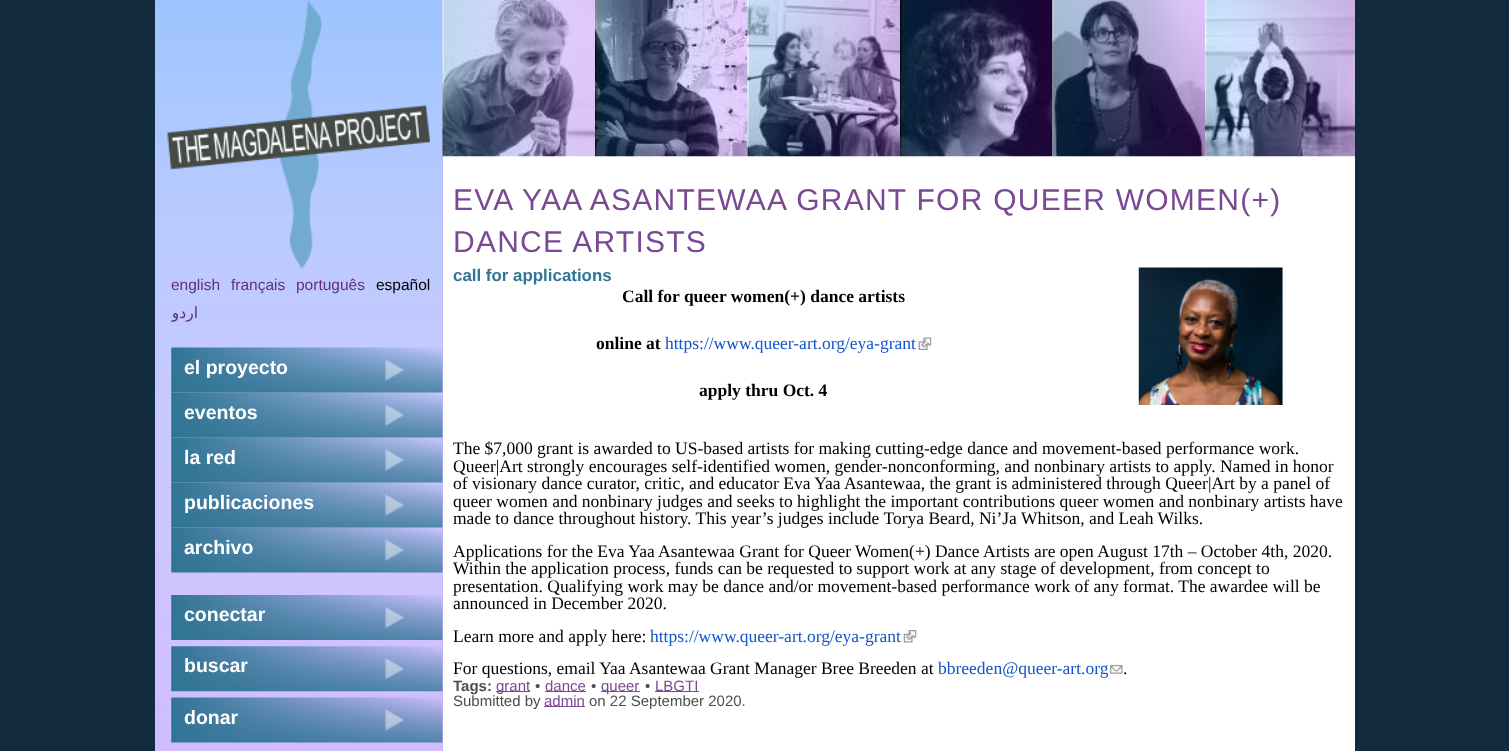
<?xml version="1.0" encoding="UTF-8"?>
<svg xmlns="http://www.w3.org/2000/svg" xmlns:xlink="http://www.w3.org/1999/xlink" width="1509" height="751">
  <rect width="100%" height="100%" fill="#122b3f" />
  <rect x="443" width="912" height="751" fill="#ffffff" />
  <rect x="155" width="288" height="751" fill="#c8afff" />
  <image x="155" y="0" width="288" height="751" xlink:href="image1.png" />
  <image x="167" y="0" width="263" height="269" xlink:href="image2.png" />
  <image x="442" y="0" width="153" height="157" xlink:href="image3.png" />
  <image x="595" y="0" width="153" height="157" xlink:href="image4.png" />
  <image x="747" y="0" width="153" height="157" xlink:href="image5.png" />
  <image x="900" y="0" width="153" height="157" xlink:href="image6.png" />
  <image x="1052" y="0" width="153" height="157" xlink:href="image7.png" />
  <image x="1205" y="0" width="150" height="157" xlink:href="image8.png" />
  <image x="171" y="347" width="272" height="46" xlink:href="image9.png" />
  <image x="171" y="392" width="272" height="46" xlink:href="image10.png" />
  <image x="171" y="437" width="272" height="46" xlink:href="image11.png" />
  <image x="171" y="482" width="272" height="46" xlink:href="image12.png" />
  <image x="171" y="527" width="272" height="46" xlink:href="image13.png" />
  <image x="171" y="595" width="272" height="45" xlink:href="image14.png" />
  <image x="171" y="646" width="272" height="46" xlink:href="image15.png" />
  <image x="171" y="697" width="272" height="46" xlink:href="image16.png" />
  <image x="1138" y="267" width="145" height="138" xlink:href="image17.png" />
  <image x="918" y="337" width="14" height="13" xlink:href="image18.png" />
  <image x="903" y="630" width="14" height="13" xlink:href="image19.png" />
  <image x="1109" y="664" width="14" height="10" xlink:href="image20.png" />
  <rect x="496" y="691" width="34" height="1" fill="#7b4994" />
  <rect x="545" y="691" width="41" height="1" fill="#7b4994" />
  <rect x="601" y="691" width="39" height="1" fill="#7b4994" />
  <rect x="655" y="691" width="44" height="1" fill="#7b4994" />
  <rect x="544" y="706" width="41" height="1" fill="#7b4994" />
  <text x="171" y="290" style="font-family: Liberation Sans; font-size: 15.5px; fill: #662d85">english</text>
  <text x="231" y="290" style="font-family: Liberation Sans; font-size: 15.5px; fill: #662d85">français</text>
  <text x="296" y="290" style="font-family: Liberation Sans; font-size: 15.5px; fill: #662d85">português</text>
  <text x="376" y="290" style="font-family: Liberation Sans; font-size: 15.5px; fill: #000000">español</text>
  <text x="198" y="318" style="font-family: DejaVu Sans; font-size: 15.5px; direction: rtl; fill: #662d85">اردو</text>
  <text x="184" y="374" style="font-family: Liberation Sans; font-size: 19.5px; font-weight: bold; fill: #ffffff">el proyecto</text>
  <text x="184" y="419" style="font-family: Liberation Sans; font-size: 19.5px; font-weight: bold; fill: #ffffff">eventos</text>
  <text x="184" y="464" style="font-family: Liberation Sans; font-size: 19.5px; font-weight: bold; fill: #ffffff">la red</text>
  <text x="184" y="509" style="font-family: Liberation Sans; font-size: 19.5px; font-weight: bold; fill: #ffffff">publicaciones</text>
  <text x="184" y="554" style="font-family: Liberation Sans; font-size: 19.5px; font-weight: bold; fill: #ffffff">archivo</text>
  <text x="184" y="621" style="font-family: Liberation Sans; font-size: 19.5px; font-weight: bold; fill: #ffffff">conectar</text>
  <text x="184" y="672" style="font-family: Liberation Sans; font-size: 19.5px; font-weight: bold; fill: #ffffff">buscar</text>
  <text x="184" y="724" style="font-family: Liberation Sans; font-size: 19.5px; font-weight: bold; fill: #ffffff">donar</text>
  <text x="453" y="210" style="font-family: Liberation Sans; font-size: 30px; letter-spacing: 1.25px; fill: #7b4994">EVA YAA ASANTEWAA GRANT FOR QUEER WOMEN(+)</text>
  <text x="453" y="252" style="font-family: Liberation Sans; font-size: 30px; letter-spacing: 1.25px; fill: #7b4994">DANCE ARTISTS</text>
  <text x="453" y="281" style="font-family: Liberation Sans; font-size: 16.9px; font-weight: bold; fill: #317594">call for applications</text>
  <text x="622" y="302" style="font-family: Liberation Serif; font-size: 17.5px; font-weight: bold; fill: #000000">Call for queer women(+) dance artists</text>
  <text x="596" y="349" style="font-family: Liberation Serif; font-size: 17.5px; font-weight: bold; fill: #000000">online at</text>
  <text x="665" y="349" style="font-family: Liberation Serif; font-size: 17.5px; fill: #1155cc">https://www.queer-art.org/eya-grant</text>
  <text x="699" y="396" style="font-family: Liberation Serif; font-size: 17.5px; font-weight: bold; fill: #000000">apply thru Oct. 4</text>
  <text x="453" y="454" style="font-family: Liberation Serif; font-size: 17.5px; fill: #000000">The $7,000 grant is awarded to US-based artists for making cutting-edge dance and movement-based performance work.</text>
  <text x="453" y="472" style="font-family: Liberation Serif; font-size: 17.5px; fill: #000000">Queer|Art strongly encourages self-identified women, gender-nonconforming, and nonbinary artists to apply. Named in honor</text>
  <text x="453" y="489" style="font-family: Liberation Serif; font-size: 17.5px; fill: #000000">of visionary dance curator, critic, and educator Eva Yaa Asantewaa, the grant is administered through Queer|Art by a panel of</text>
  <text x="453" y="507" style="font-family: Liberation Serif; font-size: 17.5px; fill: #000000">queer women and nonbinary judges and seeks to highlight the important contributions queer women and nonbinary artists have</text>
  <text x="453" y="524" style="font-family: Liberation Serif; font-size: 17.5px; fill: #000000">made to dance throughout history. This year’s judges include Torya Beard, Ni’Ja Whitson, and Leah Wilks.</text>
  <text x="453" y="557" style="font-family: Liberation Serif; font-size: 17.5px; fill: #000000">Applications for the Eva Yaa Asantewaa Grant for Queer Women(+) Dance Artists are open August 17th – October 4th, 2020.</text>
  <text x="453" y="574" style="font-family: Liberation Serif; font-size: 17.5px; fill: #000000">Within the application process, funds can be requested to support work at any stage of development, from concept to</text>
  <text x="453" y="592" style="font-family: Liberation Serif; font-size: 17.5px; fill: #000000">presentation. Qualifying work may be dance and/or movement-based performance work of any format. The awardee will be</text>
  <text x="453" y="609" style="font-family: Liberation Serif; font-size: 17.5px; fill: #000000">announced in December 2020.</text>
  <text x="453" y="642" style="font-family: Liberation Serif; font-size: 17.5px; fill: #000000">Learn more and apply here:</text>
  <text x="650" y="642" style="font-family: Liberation Serif; font-size: 17.5px; fill: #1155cc">https://www.queer-art.org/eya-grant</text>
  <text x="453" y="674" style="font-family: Liberation Serif; font-size: 17.5px; fill: #000000">For questions, email Yaa Asantewaa Grant Manager Bree Breeden at</text>
  <text x="938" y="674" style="font-family: Liberation Serif; font-size: 17.5px; fill: #1155cc">bbreeden@queer-art.org</text>
  <text x="1123" y="674" style="font-family: Liberation Serif; font-size: 17.5px; fill: #000000">.</text>
  <text x="453" y="691" style="font-family: Liberation Sans; font-size: 15px; font-weight: bold; fill: #4d4d4d">Tags:</text>
  <text x="496" y="691" style="font-family: Liberation Sans; font-size: 15px; fill: #7b4994">grant</text>
  <text x="535" y="691" style="font-family: Liberation Sans; font-size: 15px; fill: #4d4d4d">•</text>
  <text x="545" y="691" style="font-family: Liberation Sans; font-size: 15px; fill: #7b4994">dance</text>
  <text x="591" y="691" style="font-family: Liberation Sans; font-size: 15px; fill: #4d4d4d">•</text>
  <text x="601" y="691" style="font-family: Liberation Sans; font-size: 15px; fill: #7b4994">queer</text>
  <text x="645" y="691" style="font-family: Liberation Sans; font-size: 15px; fill: #4d4d4d">•</text>
  <text x="655" y="691" style="font-family: Liberation Sans; font-size: 15px; fill: #7b4994">LBGTI</text>
  <text x="453" y="706" style="font-family: Liberation Sans; font-size: 15px; fill: #4d4d4d">Submitted by</text>
  <text x="544" y="706" style="font-family: Liberation Sans; font-size: 15px; fill: #7b4994">admin</text>
  <text x="589" y="706" style="font-family: Liberation Sans; font-size: 15px; fill: #4d4d4d">on 22 September 2020.</text>
</svg>
